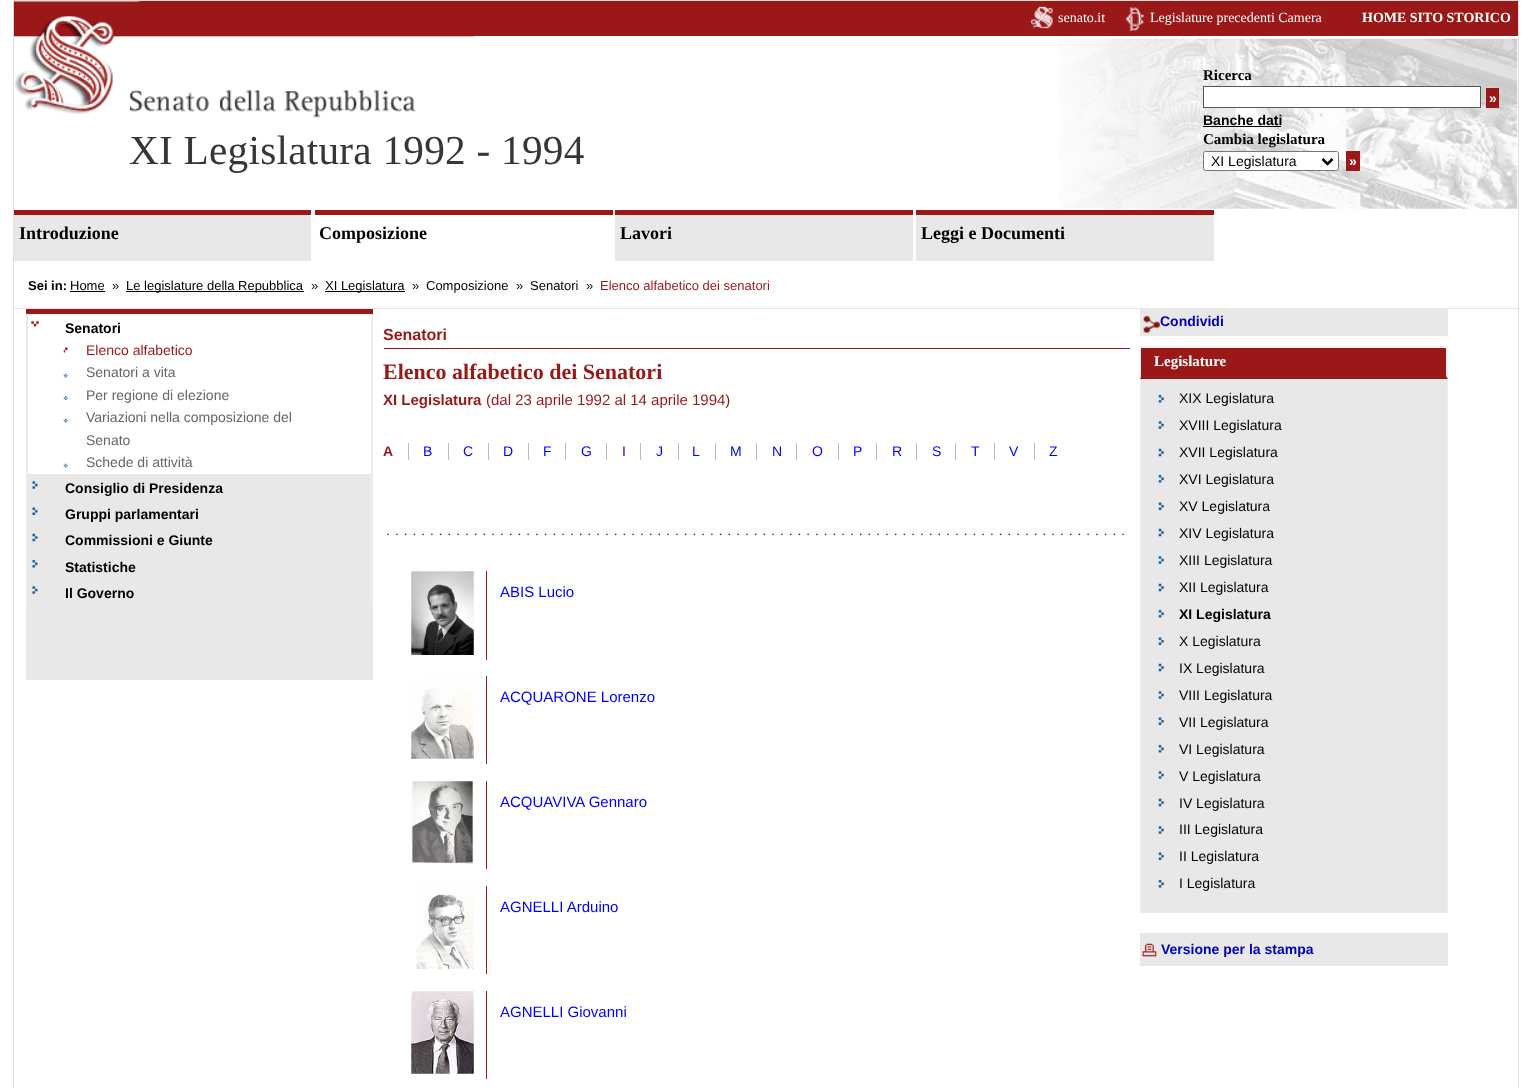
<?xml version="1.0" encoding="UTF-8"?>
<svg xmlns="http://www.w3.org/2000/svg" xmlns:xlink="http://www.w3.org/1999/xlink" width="1531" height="1088">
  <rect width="100%" height="100%" fill="#ffffff" />
  <rect x="13.5" y="0.5" width="1505" height="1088" fill="none" stroke="#dfdfdf" />
  <image x="1059" y="38" width="459" height="171" xlink:href="image1.png" />
  <image x="13" y="1" width="461" height="117" xlink:href="image2.png" />
  <rect x="139" y="1" width="1379" height="35" fill="#9b1818" />
  <image x="1031" y="6" width="22" height="23" xlink:href="image3.png" />
  <image x="1126" y="7" width="18" height="24" xlink:href="image4.png" />
  <rect x="1203.5" y="86.5" width="277" height="21" fill="#ffffff" stroke="#61534e" />
  <rect x="1486" y="88" width="13" height="20" fill="#9b1818" />
  <rect x="1203" y="126" width="78" height="1" fill="#000000" />
  <rect x="1203.5" y="151.5" width="135" height="19" rx="2" fill="#ffffff" stroke="#767676" />
  <path d="M 1322.5 159 l 5 5 l 5 -5" fill="none" stroke="#000000" stroke-width="2.5" />
  <rect x="1346" y="151" width="14" height="20" fill="#9b1818" />
  <rect x="14" y="215" width="297" height="46" fill="#e8e8e8" />
  <rect x="14" y="210" width="297" height="5" fill="#9b1818" />
  <rect x="315" y="210" width="298" height="5" fill="#9b1818" />
  <rect x="615" y="215" width="298" height="46" fill="#e8e8e8" />
  <rect x="615" y="210" width="298" height="5" fill="#9b1818" />
  <rect x="916" y="215" width="298" height="46" fill="#e8e8e8" />
  <rect x="916" y="210" width="298" height="5" fill="#9b1818" />
  <rect x="14" y="308" width="1504" height="1" fill="#e5e5e5" />
  <rect x="70" y="291" width="35" height="1" fill="#000000" />
  <rect x="126" y="291" width="178" height="1" fill="#000000" />
  <rect x="325" y="291" width="80" height="1" fill="#000000" />
  <rect x="26" y="314" width="347" height="366" fill="#e8e8e8" />
  <rect x="26" y="309" width="347" height="5" fill="#9b1818" />
  <rect x="371" y="314" width="1" height="291" fill="#ededed" />
  <rect x="26" y="314" width="1" height="291" fill="#ededed" />
  <rect x="28" y="314" width="343" height="160" fill="#ffffff" />
  <image x="31" y="321" width="8" height="6" xlink:href="image5.png" />
  <image x="63" y="347" width="5" height="6" xlink:href="image6.png" />
  <image x="63" y="373" width="5" height="5" xlink:href="image7.png" />
  <image x="63" y="396" width="5" height="4" xlink:href="image8.png" />
  <image x="63" y="418" width="5" height="5" xlink:href="image7.png" />
  <image x="63" y="463" width="5" height="5" xlink:href="image7.png" />
  <image x="32" y="481" width="6" height="8" xlink:href="image9.png" />
  <image x="32" y="507" width="6" height="8" xlink:href="image10.png" />
  <image x="32" y="533" width="6" height="9" xlink:href="image11.png" />
  <image x="32" y="559" width="6" height="9" xlink:href="image12.png" />
  <image x="32" y="586" width="6" height="8" xlink:href="image9.png" />
  <rect x="384" y="348" width="746" height="1" fill="#9b1818" />
  <rect x="408" y="443" width="1" height="17" fill="#bcbcbc" />
  <rect x="448" y="443" width="1" height="17" fill="#bcbcbc" />
  <rect x="488" y="443" width="1" height="17" fill="#bcbcbc" />
  <rect x="528" y="443" width="1" height="17" fill="#bcbcbc" />
  <rect x="565" y="443" width="1" height="17" fill="#bcbcbc" />
  <rect x="606" y="443" width="1" height="17" fill="#bcbcbc" />
  <rect x="640" y="443" width="1" height="17" fill="#bcbcbc" />
  <rect x="678" y="443" width="1" height="17" fill="#bcbcbc" />
  <rect x="715" y="443" width="1" height="17" fill="#bcbcbc" />
  <rect x="756" y="443" width="1" height="17" fill="#bcbcbc" />
  <rect x="796" y="443" width="1" height="17" fill="#bcbcbc" />
  <rect x="838" y="443" width="1" height="17" fill="#bcbcbc" />
  <rect x="876" y="443" width="1" height="17" fill="#bcbcbc" />
  <rect x="916" y="443" width="1" height="17" fill="#bcbcbc" />
  <rect x="955" y="443" width="1" height="17" fill="#bcbcbc" />
  <rect x="994" y="443" width="1" height="17" fill="#bcbcbc" />
  <rect x="1034" y="443" width="1" height="17" fill="#bcbcbc" />
  <image x="387" y="533" width="737" height="3" xlink:href="image13.png" />
  <rect x="486" y="571" width="1" height="89" fill="#9b1818" />
  <image x="411" y="571" width="63" height="84" xlink:href="image14.png" />
  <rect x="486" y="676" width="1" height="88" fill="#9b1818" />
  <image x="411" y="677" width="63" height="82" xlink:href="image15.png" />
  <rect x="486" y="781" width="1" height="88" fill="#9b1818" />
  <image x="411" y="781" width="63" height="83" xlink:href="image16.png" />
  <rect x="486" y="886" width="1" height="88" fill="#9b1818" />
  <image x="416" y="887" width="58" height="82" xlink:href="image17.png" />
  <rect x="486" y="991" width="1" height="88" fill="#9b1818" />
  <image x="411" y="991" width="63" height="83" xlink:href="image18.png" />
  <rect x="1140" y="309" width="308" height="27" fill="#e7e8e7" />
  <image x="1143" y="315" width="18" height="18" xlink:href="image19.png" />
  <rect x="1141" y="348" width="305" height="28" fill="#9b1818" />
  <rect x="1140" y="346" width="308" height="1" fill="#ededed" />
  <path d="M 1447.5 346 v 33 l -1.5 -3 v -28.5 z" fill="#ededed" />
  <path d="M 1448 379 h -308 l 1 -3 h 305 z" fill="#9b1818" />
  <path d="M 1140 379 v -33 l 1 1.5 v 28.5 z" fill="#ededed" />
  <rect x="1140.5" y="379.5" width="307" height="533" fill="#e8e8e8" stroke="#ededed" />
  <image x="1158" y="394" width="6" height="9" xlink:href="image20.png" />
  <image x="1158" y="421" width="6" height="8" xlink:href="image21.png" />
  <image x="1158" y="448" width="6" height="9" xlink:href="image22.png" />
  <image x="1158" y="474" width="6" height="9" xlink:href="image20.png" />
  <image x="1158" y="502" width="6" height="8" xlink:href="image23.png" />
  <image x="1158" y="528" width="6" height="9" xlink:href="image22.png" />
  <image x="1158" y="556" width="6" height="8" xlink:href="image21.png" />
  <image x="1158" y="583" width="6" height="9" xlink:href="image22.png" />
  <image x="1158" y="609" width="6" height="9" xlink:href="image20.png" />
  <image x="1158" y="637" width="6" height="8" xlink:href="image23.png" />
  <image x="1158" y="663" width="6" height="9" xlink:href="image22.png" />
  <image x="1158" y="691" width="6" height="8" xlink:href="image21.png" />
  <image x="1158" y="717" width="6" height="8" xlink:href="image23.png" />
  <image x="1158" y="744" width="6" height="9" xlink:href="image20.png" />
  <image x="1158" y="771" width="6" height="8" xlink:href="image21.png" />
  <image x="1158" y="798" width="6" height="9" xlink:href="image22.png" />
  <image x="1158" y="826" width="6" height="8" xlink:href="image21.png" />
  <image x="1158" y="852" width="6" height="8" xlink:href="image23.png" />
  <image x="1158" y="879" width="6" height="9" xlink:href="image20.png" />
  <rect x="1140" y="933" width="308" height="33" fill="#e7e8e7" />
  <image x="1142" y="943" width="15" height="14" xlink:href="image24.png" />
  <text x="129" y="164" style="font-family: Liberation Serif; font-size: 41.25px; letter-spacing: 0.25px; fill: #383535">XI Legislatura 1992 - 1994</text>
  <text x="1058" y="22" style="font-family: Liberation Serif; font-size: 14px; fill: #ffffff">senato.it</text>
  <text x="1150" y="22" style="font-family: Liberation Serif; font-size: 14px; fill: #ffffff">Legislature precedenti Camera</text>
  <text x="1362" y="22" style="font-family: Liberation Serif; font-size: 14px; font-weight: bold; fill: #ffffff">HOME SITO STORICO</text>
  <text x="1203" y="80" style="font-family: Liberation Serif; font-size: 15px; font-weight: bold; fill: #000000">Ricerca</text>
  <text x="1489" y="103" style="font-family: Liberation Sans; font-size: 14px; font-weight: bold; fill: #ffffff">»</text>
  <text x="1203" y="125" style="font-family: Liberation Sans; font-size: 14px; font-weight: bold; fill: #000000">Banche dati</text>
  <text x="1203" y="144" style="font-family: Liberation Serif; font-size: 15px; font-weight: bold; fill: #000000">Cambia legislatura</text>
  <text x="1211" y="166" style="font-family: Liberation Sans; font-size: 14px; fill: #000000">XI Legislatura</text>
  <text x="1349" y="166" style="font-family: Liberation Sans; font-size: 14px; font-weight: bold; fill: #ffffff">»</text>
  <text x="19" y="239" style="font-family: Liberation Serif; font-size: 18px; font-weight: bold; fill: #000000">Introduzione</text>
  <text x="319" y="239" style="font-family: Liberation Serif; font-size: 18px; font-weight: bold; fill: #000000">Composizione</text>
  <text x="620" y="239" style="font-family: Liberation Serif; font-size: 18px; font-weight: bold; fill: #000000">Lavori</text>
  <text x="921" y="239" style="font-family: Liberation Serif; font-size: 18px; font-weight: bold; fill: #000000">Leggi e Documenti</text>
  <text x="28" y="290" style="font-family: Liberation Sans; font-size: 13px; font-weight: bold; fill: #000000">Sei in:</text>
  <text x="70" y="290" style="font-family: Liberation Sans; font-size: 13px; fill: #000000">Home</text>
  <text x="112" y="290" style="font-family: Liberation Sans; font-size: 13px; fill: #000000">»</text>
  <text x="126" y="290" style="font-family: Liberation Sans; font-size: 13px; fill: #000000">Le legislature della Repubblica</text>
  <text x="311" y="290" style="font-family: Liberation Sans; font-size: 13px; fill: #000000">»</text>
  <text x="325" y="290" style="font-family: Liberation Sans; font-size: 13px; fill: #000000">XI Legislatura</text>
  <text x="412" y="290" style="font-family: Liberation Sans; font-size: 13px; fill: #000000">»</text>
  <text x="426" y="290" style="font-family: Liberation Sans; font-size: 13px; fill: #000000">Composizione</text>
  <text x="516" y="290" style="font-family: Liberation Sans; font-size: 13px; fill: #000000">»</text>
  <text x="530" y="290" style="font-family: Liberation Sans; font-size: 13px; fill: #000000">Senatori</text>
  <text x="586" y="290" style="font-family: Liberation Sans; font-size: 13px; fill: #000000">»</text>
  <text x="600" y="290" style="font-family: Liberation Sans; font-size: 13px; fill: #9b1818">Elenco alfabetico dei senatori</text>
  <text x="65" y="333" style="font-family: Liberation Sans; font-size: 14px; font-weight: bold; fill: #000000">Senatori</text>
  <text x="86" y="355" style="font-family: Liberation Sans; font-size: 14px; fill: #9b1818">Elenco alfabetico</text>
  <text x="86" y="377" style="font-family: Liberation Sans; font-size: 14px; fill: #666666">Senatori a vita</text>
  <text x="86" y="400" style="font-family: Liberation Sans; font-size: 14px; fill: #666666">Per regione di elezione</text>
  <text x="86" y="422" style="font-family: Liberation Sans; font-size: 14px; fill: #666666">Variazioni nella composizione del</text>
  <text x="86" y="445" style="font-family: Liberation Sans; font-size: 14px; fill: #666666">Senato</text>
  <text x="86" y="467" style="font-family: Liberation Sans; font-size: 14px; fill: #666666">Schede di attività</text>
  <text x="65" y="493" style="font-family: Liberation Sans; font-size: 14px; font-weight: bold; fill: #000000">Consiglio di Presidenza</text>
  <text x="65" y="519" style="font-family: Liberation Sans; font-size: 14px; font-weight: bold; fill: #000000">Gruppi parlamentari</text>
  <text x="65" y="545" style="font-family: Liberation Sans; font-size: 14px; font-weight: bold; fill: #000000">Commissioni e Giunte</text>
  <text x="65" y="572" style="font-family: Liberation Sans; font-size: 14px; font-weight: bold; fill: #000000">Statistiche</text>
  <text x="65" y="598" style="font-family: Liberation Sans; font-size: 14px; font-weight: bold; fill: #000000">Il Governo</text>
  <text x="383" y="340" style="font-family: Liberation Sans; font-size: 16px; font-weight: bold; fill: #9b1818">Senatori</text>
  <text x="383" y="379" style="font-family: Liberation Serif; font-size: 22px; font-weight: bold; fill: #9b1818">Elenco alfabetico dei Senatori</text>
  <text x="383" y="405" style="font-family: Liberation Sans; font-size: 15px; font-weight: bold; fill: #9b1818">XI Legislatura</text>
  <text x="486" y="405" style="font-family: Liberation Sans; font-size: 15px; fill: #9b1818">(dal 23 aprile 1992 al 14 aprile 1994)</text>
  <text x="383" y="456" style="font-family: Liberation Sans; font-size: 14px; font-weight: bold; fill: #9b1818">A</text>
  <text x="423" y="456" style="font-family: Liberation Sans; font-size: 14px; fill: #0000ff">B</text>
  <text x="463" y="456" style="font-family: Liberation Sans; font-size: 14px; fill: #0000ff">C</text>
  <text x="503" y="456" style="font-family: Liberation Sans; font-size: 14px; fill: #0000ff">D</text>
  <text x="543" y="456" style="font-family: Liberation Sans; font-size: 14px; fill: #0000ff">F</text>
  <text x="581" y="456" style="font-family: Liberation Sans; font-size: 14px; fill: #0000ff">G</text>
  <text x="622" y="456" style="font-family: Liberation Sans; font-size: 14px; fill: #0000ff">I</text>
  <text x="656" y="456" style="font-family: Liberation Sans; font-size: 14px; fill: #0000ff">J</text>
  <text x="692" y="456" style="font-family: Liberation Sans; font-size: 14px; fill: #0000ff">L</text>
  <text x="730" y="456" style="font-family: Liberation Sans; font-size: 14px; fill: #0000ff">M</text>
  <text x="772" y="456" style="font-family: Liberation Sans; font-size: 14px; fill: #0000ff">N</text>
  <text x="812" y="456" style="font-family: Liberation Sans; font-size: 14px; fill: #0000ff">O</text>
  <text x="853" y="456" style="font-family: Liberation Sans; font-size: 14px; fill: #0000ff">P</text>
  <text x="892" y="456" style="font-family: Liberation Sans; font-size: 14px; fill: #0000ff">R</text>
  <text x="932" y="456" style="font-family: Liberation Sans; font-size: 14px; fill: #0000ff">S</text>
  <text x="971" y="456" style="font-family: Liberation Sans; font-size: 14px; fill: #0000ff">T</text>
  <text x="1009" y="456" style="font-family: Liberation Sans; font-size: 14px; fill: #0000ff">V</text>
  <text x="1049" y="456" style="font-family: Liberation Sans; font-size: 14px; fill: #0000ff">Z</text>
  <text x="500" y="597" style="font-family: Liberation Sans; font-size: 15px; fill: #0000ff">ABIS Lucio</text>
  <text x="500" y="702" style="font-family: Liberation Sans; font-size: 15px; fill: #0000ff">ACQUARONE Lorenzo</text>
  <text x="500" y="807" style="font-family: Liberation Sans; font-size: 15px; fill: #0000ff">ACQUAVIVA Gennaro</text>
  <text x="500" y="912" style="font-family: Liberation Sans; font-size: 15px; fill: #0000ff">AGNELLI Arduino</text>
  <text x="500" y="1017" style="font-family: Liberation Sans; font-size: 15px; fill: #0000ff">AGNELLI Giovanni</text>
  <text x="1160" y="326" style="font-family: Liberation Sans; font-size: 14px; font-weight: bold; fill: #0000bb">Condividi</text>
  <text x="1154" y="366" style="font-family: Liberation Serif; font-size: 15px; font-weight: bold; fill: #ffffff">Legislature</text>
  <text x="1179" y="403" style="font-family: Liberation Sans; font-size: 14px; fill: #000000">XIX Legislatura</text>
  <text x="1179" y="430" style="font-family: Liberation Sans; font-size: 14px; fill: #000000">XVIII Legislatura</text>
  <text x="1179" y="457" style="font-family: Liberation Sans; font-size: 14px; fill: #000000">XVII Legislatura</text>
  <text x="1179" y="484" style="font-family: Liberation Sans; font-size: 14px; fill: #000000">XVI Legislatura</text>
  <text x="1179" y="511" style="font-family: Liberation Sans; font-size: 14px; fill: #000000">XV Legislatura</text>
  <text x="1179" y="538" style="font-family: Liberation Sans; font-size: 14px; fill: #000000">XIV Legislatura</text>
  <text x="1179" y="565" style="font-family: Liberation Sans; font-size: 14px; fill: #000000">XIII Legislatura</text>
  <text x="1179" y="592" style="font-family: Liberation Sans; font-size: 14px; fill: #000000">XII Legislatura</text>
  <text x="1179" y="619" style="font-family: Liberation Sans; font-size: 14px; font-weight: bold; fill: #000000">XI Legislatura</text>
  <text x="1179" y="646" style="font-family: Liberation Sans; font-size: 14px; fill: #000000">X Legislatura</text>
  <text x="1179" y="673" style="font-family: Liberation Sans; font-size: 14px; fill: #000000">IX Legislatura</text>
  <text x="1179" y="700" style="font-family: Liberation Sans; font-size: 14px; fill: #000000">VIII Legislatura</text>
  <text x="1179" y="727" style="font-family: Liberation Sans; font-size: 14px; fill: #000000">VII Legislatura</text>
  <text x="1179" y="754" style="font-family: Liberation Sans; font-size: 14px; fill: #000000">VI Legislatura</text>
  <text x="1179" y="781" style="font-family: Liberation Sans; font-size: 14px; fill: #000000">V Legislatura</text>
  <text x="1179" y="808" style="font-family: Liberation Sans; font-size: 14px; fill: #000000">IV Legislatura</text>
  <text x="1179" y="834" style="font-family: Liberation Sans; font-size: 14px; fill: #000000">III Legislatura</text>
  <text x="1179" y="861" style="font-family: Liberation Sans; font-size: 14px; fill: #000000">II Legislatura</text>
  <text x="1179" y="888" style="font-family: Liberation Sans; font-size: 14px; fill: #000000">I Legislatura</text>
  <text x="1161" y="954" style="font-family: Liberation Sans; font-size: 14px; font-weight: bold; fill: #0000bb">Versione per la stampa</text>
</svg>
